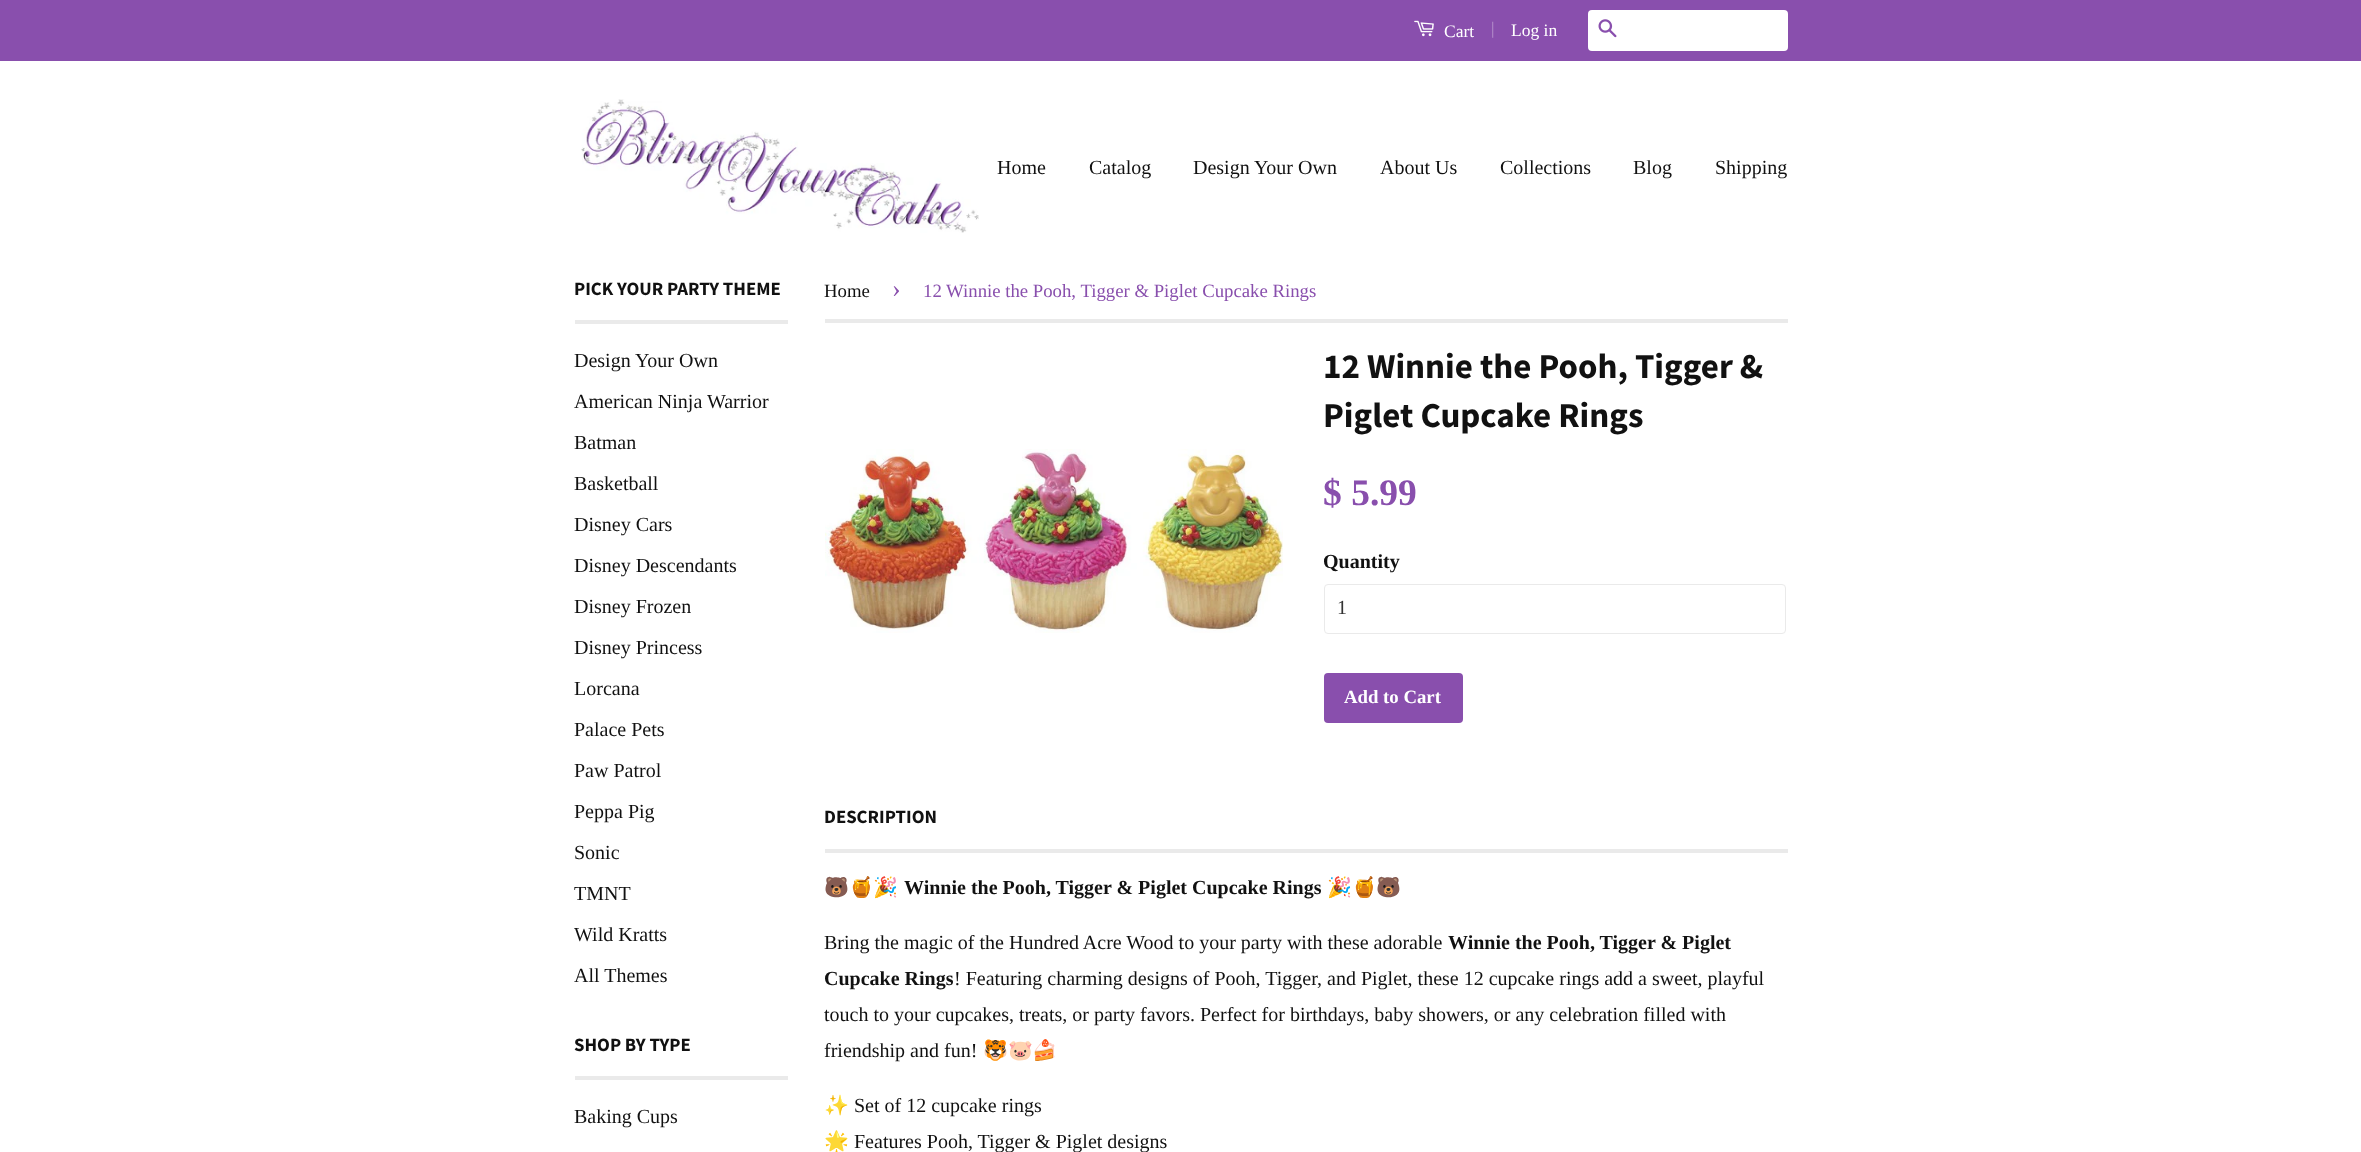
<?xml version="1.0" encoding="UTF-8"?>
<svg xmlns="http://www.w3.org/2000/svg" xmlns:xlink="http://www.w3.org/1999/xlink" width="2361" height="1152">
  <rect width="100%" height="100%" fill="#ffffff" />
  <rect width="2361" height="61" fill="#894fad" />
  <image x="1414" y="20" width="20" height="17" xlink:href="image1.png" />
  <rect x="1588" y="10" width="200" height="41" rx="4" fill="#ffffff" />
  <image x="1598" y="19" width="19" height="19" xlink:href="image2.png" />
  <image x="581" y="99" width="398" height="134" xlink:href="image3.png" />
  <rect x="575" y="320" width="213" height="4" fill="#eaeaea" />
  <rect x="575" y="1076" width="213" height="4" fill="#eaeaea" />
  <rect x="825" y="319" width="963" height="4" fill="#eaeaea" />
  <image x="825" y="449" width="458" height="184" xlink:href="image4.png" />
  <rect x="1324.5" y="584.5" width="461" height="49" rx="3.5" fill="none" stroke="#eaeaea" />
  <rect x="1324" y="673" width="139" height="50" rx="4" fill="#894fad" />
  <rect x="825" y="849" width="963" height="4" fill="#eaeaea" />
  <text x="1444" y="37" style="font-family: Liberation Serif; font-size: 17.5px; fill: #ffffff">Cart</text>
  <text x="1491" y="34" style="font-family: Liberation Serif; font-size: 17.5px; fill: #b895ce">|</text>
  <text x="1511" y="36" style="font-family: Liberation Serif; font-size: 17.5px; fill: #ffffff">Log in</text>
  <text x="997" y="174" style="font-family: Liberation Serif; font-size: 20px; fill: #111111">Home</text>
  <text x="1089" y="174" style="font-family: Liberation Serif; font-size: 20px; fill: #111111">Catalog</text>
  <text x="1193" y="174" style="font-family: Liberation Serif; font-size: 20px; fill: #111111">Design Your Own</text>
  <text x="1380" y="174" style="font-family: Liberation Serif; font-size: 20px; fill: #111111">About Us</text>
  <text x="1500" y="174" style="font-family: Liberation Serif; font-size: 20px; fill: #111111">Collections</text>
  <text x="1633" y="174" style="font-family: Liberation Serif; font-size: 20px; fill: #111111">Blog</text>
  <text x="1715" y="174" style="font-family: Liberation Serif; font-size: 20px; fill: #111111">Shipping</text>
  <text x="574" y="295" style="font-family: Source Sans Pro; font-size: 18.75px; font-weight: bold; fill: #111111">PICK YOUR PARTY THEME</text>
  <text x="574" y="367" style="font-family: Liberation Serif; font-size: 20px; fill: #111111">Design Your Own</text>
  <text x="574" y="408" style="font-family: Liberation Serif; font-size: 20px; fill: #111111">American Ninja Warrior</text>
  <text x="574" y="449" style="font-family: Liberation Serif; font-size: 20px; fill: #111111">Batman</text>
  <text x="574" y="490" style="font-family: Liberation Serif; font-size: 20px; fill: #111111">Basketball</text>
  <text x="574" y="531" style="font-family: Liberation Serif; font-size: 20px; fill: #111111">Disney Cars</text>
  <text x="574" y="572" style="font-family: Liberation Serif; font-size: 20px; fill: #111111">Disney Descendants</text>
  <text x="574" y="613" style="font-family: Liberation Serif; font-size: 20px; fill: #111111">Disney Frozen</text>
  <text x="574" y="654" style="font-family: Liberation Serif; font-size: 20px; fill: #111111">Disney Princess</text>
  <text x="574" y="695" style="font-family: Liberation Serif; font-size: 20px; fill: #111111">Lorcana</text>
  <text x="574" y="736" style="font-family: Liberation Serif; font-size: 20px; fill: #111111">Palace Pets</text>
  <text x="574" y="777" style="font-family: Liberation Serif; font-size: 20px; fill: #111111">Paw Patrol</text>
  <text x="574" y="818" style="font-family: Liberation Serif; font-size: 20px; fill: #111111">Peppa Pig</text>
  <text x="574" y="859" style="font-family: Liberation Serif; font-size: 20px; fill: #111111">Sonic</text>
  <text x="574" y="900" style="font-family: Liberation Serif; font-size: 20px; fill: #111111">TMNT</text>
  <text x="574" y="941" style="font-family: Liberation Serif; font-size: 20px; fill: #111111">Wild Kratts</text>
  <text x="574" y="982" style="font-family: Liberation Serif; font-size: 20px; fill: #111111">All Themes</text>
  <text x="574" y="1051" style="font-family: Source Sans Pro; font-size: 18.75px; font-weight: bold; fill: #111111">SHOP BY TYPE</text>
  <text x="574" y="1123" style="font-family: Liberation Serif; font-size: 20px; fill: #111111">Baking Cups</text>
  <text x="824" y="297" style="font-family: Liberation Serif; font-size: 18.75px; fill: #111111">Home</text>
  <text x="892" y="297" style="font-family: Liberation Serif; font-size: 26px; fill: #894fad">›</text>
  <text x="923" y="297" style="font-family: Liberation Serif; font-size: 18.75px; fill: #894fad">12 Winnie the Pooh, Tigger &amp; Piglet Cupcake Rings</text>
  <text x="1323" y="378" style="font-family: Source Sans Pro; font-size: 35px; font-weight: bold; fill: #111111">12 Winnie the Pooh, Tigger &amp;</text>
  <text x="1323" y="427" style="font-family: Source Sans Pro; font-size: 35px; font-weight: bold; fill: #111111">Piglet Cupcake Rings</text>
  <text x="1323" y="505" style="font-family: Liberation Serif; font-size: 37.5px; font-weight: bold; fill: #894fad">$ 5.99</text>
  <text x="1323" y="568" style="font-family: Liberation Serif; font-size: 20px; font-weight: bold; fill: #111111">Quantity</text>
  <text x="1337" y="614" style="font-family: Liberation Serif; font-size: 20px; fill: #333333">1</text>
  <text x="1344" y="703" style="font-family: Liberation Serif; font-size: 18.75px; font-weight: bold; fill: #ffffff">Add to Cart</text>
  <text x="824" y="823" style="font-family: Source Sans Pro; font-size: 18.75px; font-weight: bold; fill: #111111">DESCRIPTION</text>
  <text x="824" y="894" style="font-family: Noto Color Emoji; font-size: 20px; fill: #111111">🐻🍯🎉</text>
  <text x="904" y="894" style="font-family: Liberation Serif; font-size: 20px; font-weight: bold; fill: #111111">Winnie the Pooh, Tigger &amp; Piglet Cupcake Rings</text>
  <text x="1327" y="894" style="font-family: Noto Color Emoji; font-size: 20px; fill: #111111">🎉🍯🐻</text>
  <text x="824" y="949" style="font-family: Liberation Serif; font-size: 20px; fill: #111111">Bring the magic of the Hundred Acre Wood to your party with these adorable</text>
  <text x="1448" y="949" style="font-family: Liberation Serif; font-size: 20px; font-weight: bold; fill: #111111">Winnie the Pooh, Tigger &amp; Piglet</text>
  <text x="824" y="985" style="font-family: Liberation Serif; font-size: 20px; font-weight: bold; fill: #111111">Cupcake Rings</text>
  <text x="954" y="985" style="font-family: Liberation Serif; font-size: 20px; fill: #111111">! Featuring charming designs of Pooh, Tigger, and Piglet, these 12 cupcake rings add a sweet, playful</text>
  <text x="824" y="1021" style="font-family: Liberation Serif; font-size: 20px; fill: #111111">touch to your cupcakes, treats, or party favors. Perfect for birthdays, baby showers, or any celebration filled with</text>
  <text x="824" y="1057" style="font-family: Liberation Serif; font-size: 20px; fill: #111111">friendship and fun!</text>
  <text x="983" y="1057" style="font-family: Noto Color Emoji; font-size: 20px; fill: #111111">🐯🐷🍰</text>
  <text x="824" y="1112" style="font-family: Noto Color Emoji; font-size: 20px; fill: #111111">✨</text>
  <text x="854" y="1112" style="font-family: Liberation Serif; font-size: 20px; fill: #111111">Set of 12 cupcake rings</text>
  <text x="824" y="1148" style="font-family: Noto Color Emoji; font-size: 20px; fill: #111111">🌟</text>
  <text x="854" y="1148" style="font-family: Liberation Serif; font-size: 20px; fill: #111111">Features Pooh, Tigger &amp; Piglet designs</text>
</svg>
